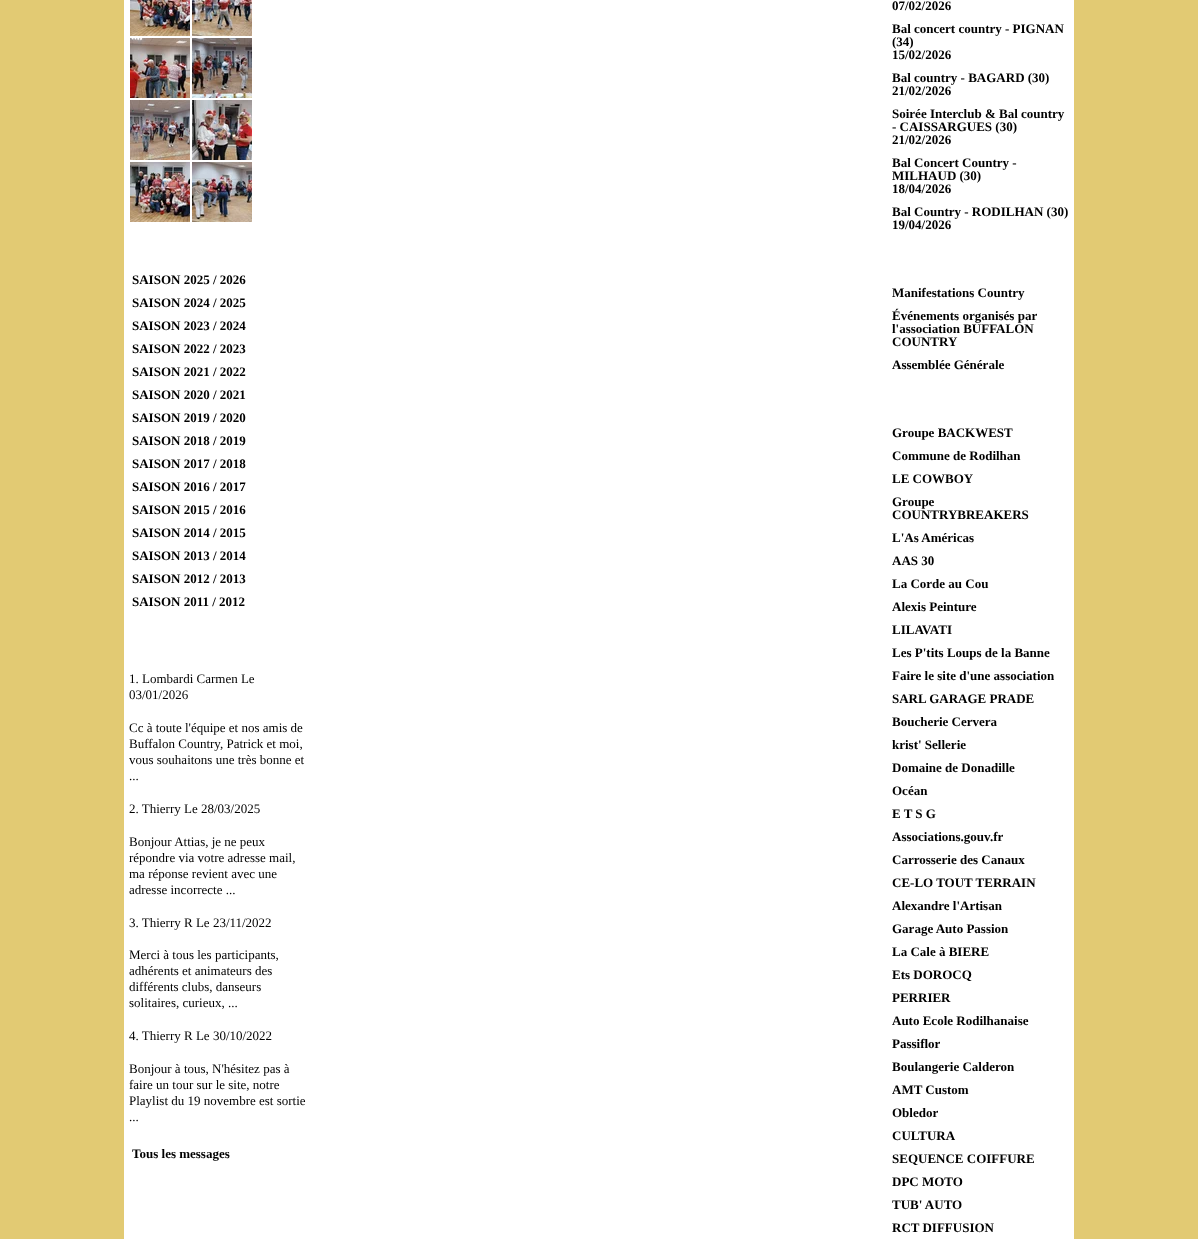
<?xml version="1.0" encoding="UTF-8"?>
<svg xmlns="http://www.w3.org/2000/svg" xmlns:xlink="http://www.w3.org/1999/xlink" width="1198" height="1239">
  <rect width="100%" height="100%" fill="#e2ca73" />
  <rect x="124" width="950" height="1239" fill="#ffffff" />
  <image x="130" y="0" width="60" height="36" xlink:href="image1.png" />
  <image x="192" y="0" width="60" height="36" xlink:href="image2.png" />
  <image x="130" y="38" width="60" height="60" xlink:href="image3.png" />
  <image x="192" y="38" width="60" height="60" xlink:href="image4.png" />
  <image x="130" y="100" width="60" height="60" xlink:href="image5.png" />
  <image x="192" y="100" width="60" height="60" xlink:href="image6.png" />
  <image x="130" y="162" width="60" height="60" xlink:href="image7.png" />
  <image x="192" y="162" width="60" height="60" xlink:href="image8.png" />
  <text x="132" y="284" style="font-family: Liberation Serif; font-size: 13px; font-weight: bold; fill: #000000">SAISON 2025 / 2026</text>
  <text x="132" y="307" style="font-family: Liberation Serif; font-size: 13px; font-weight: bold; fill: #000000">SAISON 2024 / 2025</text>
  <text x="132" y="330" style="font-family: Liberation Serif; font-size: 13px; font-weight: bold; fill: #000000">SAISON 2023 / 2024</text>
  <text x="132" y="353" style="font-family: Liberation Serif; font-size: 13px; font-weight: bold; fill: #000000">SAISON 2022 / 2023</text>
  <text x="132" y="376" style="font-family: Liberation Serif; font-size: 13px; font-weight: bold; fill: #000000">SAISON 2021 / 2022</text>
  <text x="132" y="399" style="font-family: Liberation Serif; font-size: 13px; font-weight: bold; fill: #000000">SAISON 2020 / 2021</text>
  <text x="132" y="422" style="font-family: Liberation Serif; font-size: 13px; font-weight: bold; fill: #000000">SAISON 2019 / 2020</text>
  <text x="132" y="445" style="font-family: Liberation Serif; font-size: 13px; font-weight: bold; fill: #000000">SAISON 2018 / 2019</text>
  <text x="132" y="468" style="font-family: Liberation Serif; font-size: 13px; font-weight: bold; fill: #000000">SAISON 2017 / 2018</text>
  <text x="132" y="491" style="font-family: Liberation Serif; font-size: 13px; font-weight: bold; fill: #000000">SAISON 2016 / 2017</text>
  <text x="132" y="514" style="font-family: Liberation Serif; font-size: 13px; font-weight: bold; fill: #000000">SAISON 2015 / 2016</text>
  <text x="132" y="537" style="font-family: Liberation Serif; font-size: 13px; font-weight: bold; fill: #000000">SAISON 2014 / 2015</text>
  <text x="132" y="560" style="font-family: Liberation Serif; font-size: 13px; font-weight: bold; fill: #000000">SAISON 2013 / 2014</text>
  <text x="132" y="583" style="font-family: Liberation Serif; font-size: 13px; font-weight: bold; fill: #000000">SAISON 2012 / 2013</text>
  <text x="132" y="606" style="font-family: Liberation Serif; font-size: 13px; font-weight: bold; fill: #000000">SAISON 2011 / 2012</text>
  <text x="129" y="683" style="font-family: Liberation Serif; font-size: 13px; fill: #000000">1. Lombardi Carmen Le</text>
  <text x="129" y="699" style="font-family: Liberation Serif; font-size: 13px; fill: #000000">03/01/2026</text>
  <text x="129" y="732" style="font-family: Liberation Serif; font-size: 13px; fill: #000000">Cc à toute l'équipe et nos amis de</text>
  <text x="129" y="748" style="font-family: Liberation Serif; font-size: 13px; fill: #000000">Buffalon Country, Patrick et moi,</text>
  <text x="129" y="764" style="font-family: Liberation Serif; font-size: 13px; fill: #000000">vous souhaitons une très bonne et</text>
  <text x="129" y="780" style="font-family: Liberation Serif; font-size: 13px; fill: #000000">...</text>
  <text x="129" y="813" style="font-family: Liberation Serif; font-size: 13px; fill: #000000">2. Thierry Le 28/03/2025</text>
  <text x="129" y="846" style="font-family: Liberation Serif; font-size: 13px; fill: #000000">Bonjour Attias, je ne peux</text>
  <text x="129" y="862" style="font-family: Liberation Serif; font-size: 13px; fill: #000000">répondre via votre adresse mail,</text>
  <text x="129" y="878" style="font-family: Liberation Serif; font-size: 13px; fill: #000000">ma réponse revient avec une</text>
  <text x="129" y="894" style="font-family: Liberation Serif; font-size: 13px; fill: #000000">adresse incorrecte ...</text>
  <text x="129" y="927" style="font-family: Liberation Serif; font-size: 13px; fill: #000000">3. Thierry R Le 23/11/2022</text>
  <text x="129" y="959" style="font-family: Liberation Serif; font-size: 13px; fill: #000000">Merci à tous les participants,</text>
  <text x="129" y="975" style="font-family: Liberation Serif; font-size: 13px; fill: #000000">adhérents et animateurs des</text>
  <text x="129" y="991" style="font-family: Liberation Serif; font-size: 13px; fill: #000000">différents clubs, danseurs</text>
  <text x="129" y="1007" style="font-family: Liberation Serif; font-size: 13px; fill: #000000">solitaires, curieux, ...</text>
  <text x="129" y="1040" style="font-family: Liberation Serif; font-size: 13px; fill: #000000">4. Thierry R Le 30/10/2022</text>
  <text x="129" y="1073" style="font-family: Liberation Serif; font-size: 13px; fill: #000000">Bonjour à tous, N'hésitez pas à</text>
  <text x="129" y="1089" style="font-family: Liberation Serif; font-size: 13px; fill: #000000">faire un tour sur le site, notre</text>
  <text x="129" y="1105" style="font-family: Liberation Serif; font-size: 13px; fill: #000000">Playlist du 19 novembre est sortie</text>
  <text x="129" y="1121" style="font-family: Liberation Serif; font-size: 13px; fill: #000000">...</text>
  <text x="132" y="1158" style="font-family: Liberation Serif; font-size: 13px; font-weight: bold; fill: #000000">Tous les messages</text>
  <text x="892" y="10" style="font-family: Liberation Serif; font-size: 13px; font-weight: bold; fill: #000000">07/02/2026</text>
  <text x="892" y="33" style="font-family: Liberation Serif; font-size: 13px; font-weight: bold; fill: #000000">Bal concert country - PIGNAN</text>
  <text x="892" y="46" style="font-family: Liberation Serif; font-size: 13px; font-weight: bold; fill: #000000">(34)</text>
  <text x="892" y="59" style="font-family: Liberation Serif; font-size: 13px; font-weight: bold; fill: #000000">15/02/2026</text>
  <text x="892" y="82" style="font-family: Liberation Serif; font-size: 13px; font-weight: bold; fill: #000000">Bal country - BAGARD (30)</text>
  <text x="892" y="95" style="font-family: Liberation Serif; font-size: 13px; font-weight: bold; fill: #000000">21/02/2026</text>
  <text x="892" y="118" style="font-family: Liberation Serif; font-size: 13px; font-weight: bold; fill: #000000">Soirée Interclub &amp; Bal country</text>
  <text x="892" y="131" style="font-family: Liberation Serif; font-size: 13px; font-weight: bold; fill: #000000">- CAISSARGUES (30)</text>
  <text x="892" y="144" style="font-family: Liberation Serif; font-size: 13px; font-weight: bold; fill: #000000">21/02/2026</text>
  <text x="892" y="167" style="font-family: Liberation Serif; font-size: 13px; font-weight: bold; fill: #000000">Bal Concert Country -</text>
  <text x="892" y="180" style="font-family: Liberation Serif; font-size: 13px; font-weight: bold; fill: #000000">MILHAUD (30)</text>
  <text x="892" y="193" style="font-family: Liberation Serif; font-size: 13px; font-weight: bold; fill: #000000">18/04/2026</text>
  <text x="892" y="216" style="font-family: Liberation Serif; font-size: 13px; font-weight: bold; fill: #000000">Bal Country - RODILHAN (30)</text>
  <text x="892" y="229" style="font-family: Liberation Serif; font-size: 13px; font-weight: bold; fill: #000000">19/04/2026</text>
  <text x="892" y="297" style="font-family: Liberation Serif; font-size: 13px; font-weight: bold; fill: #000000">Manifestations Country</text>
  <text x="892" y="320" style="font-family: Liberation Serif; font-size: 13px; font-weight: bold; fill: #000000">Événements organisés par</text>
  <text x="892" y="333" style="font-family: Liberation Serif; font-size: 13px; font-weight: bold; fill: #000000">l'association BUFFALON</text>
  <text x="892" y="346" style="font-family: Liberation Serif; font-size: 13px; font-weight: bold; fill: #000000">COUNTRY</text>
  <text x="892" y="369" style="font-family: Liberation Serif; font-size: 13px; font-weight: bold; fill: #000000">Assemblée Générale</text>
  <text x="892" y="437" style="font-family: Liberation Serif; font-size: 13px; font-weight: bold; fill: #000000">Groupe BACKWEST</text>
  <text x="892" y="460" style="font-family: Liberation Serif; font-size: 13px; font-weight: bold; fill: #000000">Commune de Rodilhan</text>
  <text x="892" y="483" style="font-family: Liberation Serif; font-size: 13px; font-weight: bold; fill: #000000">LE COWBOY</text>
  <text x="892" y="506" style="font-family: Liberation Serif; font-size: 13px; font-weight: bold; fill: #000000">Groupe</text>
  <text x="892" y="519" style="font-family: Liberation Serif; font-size: 13px; font-weight: bold; fill: #000000">COUNTRYBREAKERS</text>
  <text x="892" y="542" style="font-family: Liberation Serif; font-size: 13px; font-weight: bold; fill: #000000">L'As Américas</text>
  <text x="892" y="565" style="font-family: Liberation Serif; font-size: 13px; font-weight: bold; fill: #000000">AAS 30</text>
  <text x="892" y="588" style="font-family: Liberation Serif; font-size: 13px; font-weight: bold; fill: #000000">La Corde au Cou</text>
  <text x="892" y="611" style="font-family: Liberation Serif; font-size: 13px; font-weight: bold; fill: #000000">Alexis Peinture</text>
  <text x="892" y="634" style="font-family: Liberation Serif; font-size: 13px; font-weight: bold; fill: #000000">LILAVATI</text>
  <text x="892" y="657" style="font-family: Liberation Serif; font-size: 13px; font-weight: bold; fill: #000000">Les P'tits Loups de la Banne</text>
  <text x="892" y="680" style="font-family: Liberation Serif; font-size: 13px; font-weight: bold; fill: #000000">Faire le site d'une association</text>
  <text x="892" y="703" style="font-family: Liberation Serif; font-size: 13px; font-weight: bold; fill: #000000">SARL GARAGE PRADE</text>
  <text x="892" y="726" style="font-family: Liberation Serif; font-size: 13px; font-weight: bold; fill: #000000">Boucherie Cervera</text>
  <text x="892" y="749" style="font-family: Liberation Serif; font-size: 13px; font-weight: bold; fill: #000000">krist' Sellerie</text>
  <text x="892" y="772" style="font-family: Liberation Serif; font-size: 13px; font-weight: bold; fill: #000000">Domaine de Donadille</text>
  <text x="892" y="795" style="font-family: Liberation Serif; font-size: 13px; font-weight: bold; fill: #000000">Océan</text>
  <text x="892" y="818" style="font-family: Liberation Serif; font-size: 13px; font-weight: bold; fill: #000000">E T S G</text>
  <text x="892" y="841" style="font-family: Liberation Serif; font-size: 13px; font-weight: bold; fill: #000000">Associations.gouv.fr</text>
  <text x="892" y="864" style="font-family: Liberation Serif; font-size: 13px; font-weight: bold; fill: #000000">Carrosserie des Canaux</text>
  <text x="892" y="887" style="font-family: Liberation Serif; font-size: 13px; font-weight: bold; fill: #000000">CE-LO TOUT TERRAIN</text>
  <text x="892" y="910" style="font-family: Liberation Serif; font-size: 13px; font-weight: bold; fill: #000000">Alexandre l'Artisan</text>
  <text x="892" y="933" style="font-family: Liberation Serif; font-size: 13px; font-weight: bold; fill: #000000">Garage Auto Passion</text>
  <text x="892" y="956" style="font-family: Liberation Serif; font-size: 13px; font-weight: bold; fill: #000000">La Cale à BIERE</text>
  <text x="892" y="979" style="font-family: Liberation Serif; font-size: 13px; font-weight: bold; fill: #000000">Ets DOROCQ</text>
  <text x="892" y="1002" style="font-family: Liberation Serif; font-size: 13px; font-weight: bold; fill: #000000">PERRIER</text>
  <text x="892" y="1025" style="font-family: Liberation Serif; font-size: 13px; font-weight: bold; fill: #000000">Auto Ecole Rodilhanaise</text>
  <text x="892" y="1048" style="font-family: Liberation Serif; font-size: 13px; font-weight: bold; fill: #000000">Passiflor</text>
  <text x="892" y="1071" style="font-family: Liberation Serif; font-size: 13px; font-weight: bold; fill: #000000">Boulangerie Calderon</text>
  <text x="892" y="1094" style="font-family: Liberation Serif; font-size: 13px; font-weight: bold; fill: #000000">AMT Custom</text>
  <text x="892" y="1117" style="font-family: Liberation Serif; font-size: 13px; font-weight: bold; fill: #000000">Obledor</text>
  <text x="892" y="1140" style="font-family: Liberation Serif; font-size: 13px; font-weight: bold; fill: #000000">CULTURA</text>
  <text x="892" y="1163" style="font-family: Liberation Serif; font-size: 13px; font-weight: bold; fill: #000000">SEQUENCE COIFFURE</text>
  <text x="892" y="1186" style="font-family: Liberation Serif; font-size: 13px; font-weight: bold; fill: #000000">DPC MOTO</text>
  <text x="892" y="1209" style="font-family: Liberation Serif; font-size: 13px; font-weight: bold; fill: #000000">TUB' AUTO</text>
  <text x="892" y="1232" style="font-family: Liberation Serif; font-size: 13px; font-weight: bold; fill: #000000">RCT DIFFUSION</text>
</svg>
